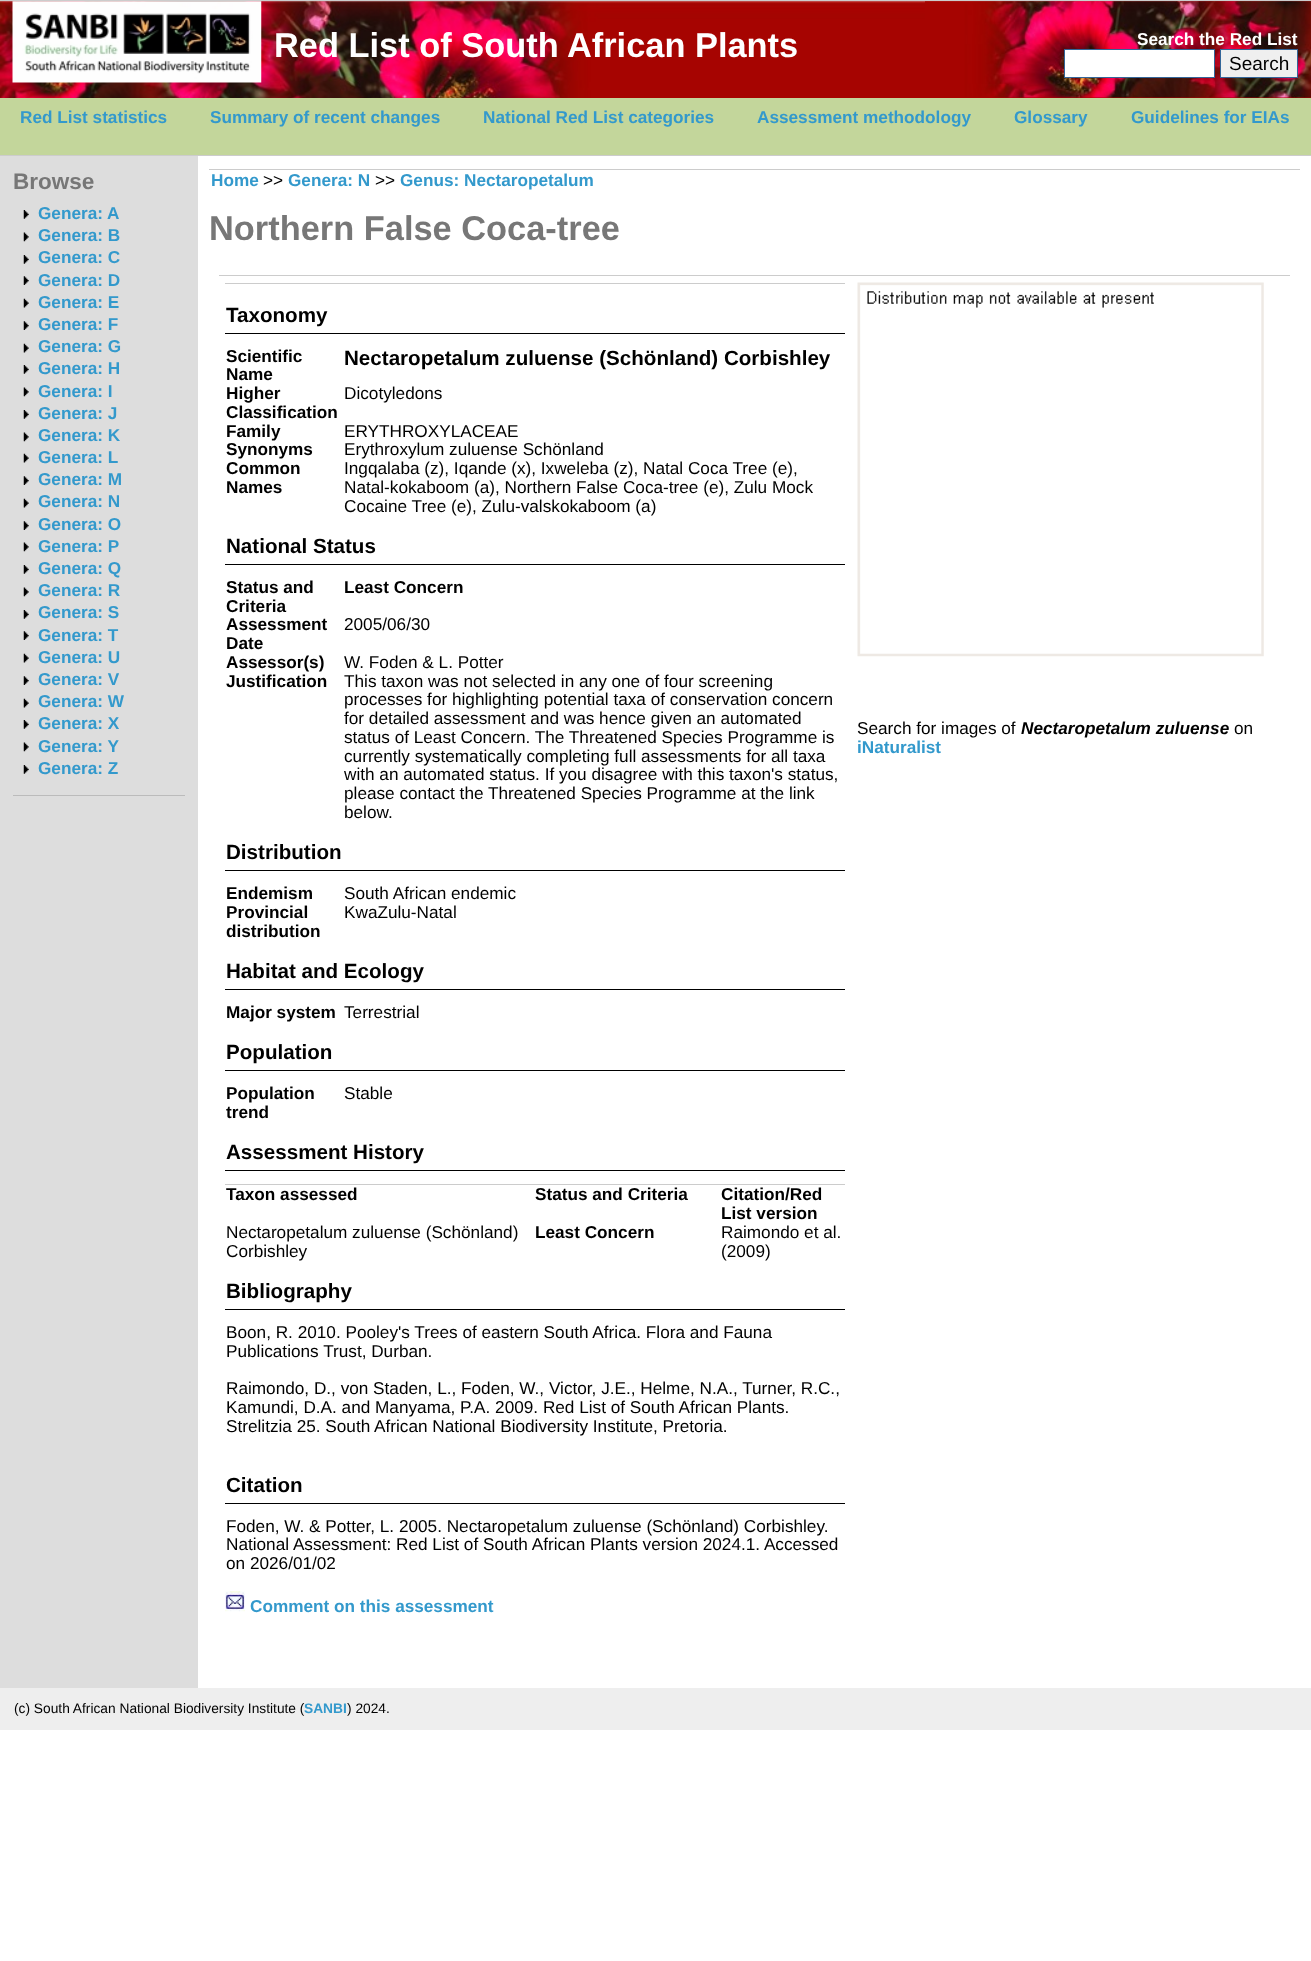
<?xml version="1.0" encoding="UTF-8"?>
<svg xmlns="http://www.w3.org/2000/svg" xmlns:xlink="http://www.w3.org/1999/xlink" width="1311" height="1961">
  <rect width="100%" height="100%" fill="#ffffff" />
  <rect y="1" width="1311" height="97" fill="#a60400" />
  <image x="0" y="1" width="1311" height="97" xlink:href="image1.png" />
  <rect width="1311" height="1" fill="#cccccc" />
  <image x="12" y="1" width="250" height="82" xlink:href="image2.png" />
  <image x="925" y="1" width="386" height="97" xlink:href="image3.png" />
  <rect x="1064.5" y="49.5" width="150" height="28" fill="#ffffff" stroke="#336699" />
  <rect x="1220.5" y="49.5" width="77" height="28" fill="#efefef" stroke="#336699" />
  <rect y="98" width="1311" height="57" fill="#c3d69b" />
  <rect y="155" width="1311" height="1" fill="#cccccc" />
  <rect y="156" width="198" height="1532" fill="#dddddd" />
  <rect x="13" y="795" width="172" height="1" fill="#bbbbbb" />
  <image x="23" y="210" width="6" height="9" xlink:href="image4.png" />
  <image x="23" y="232" width="6" height="10" xlink:href="image5.png" />
  <image x="23" y="255" width="6" height="9" xlink:href="image4.png" />
  <image x="23" y="276" width="6" height="9" xlink:href="image6.png" />
  <image x="23" y="298" width="6" height="10" xlink:href="image7.png" />
  <image x="23" y="321" width="6" height="9" xlink:href="image6.png" />
  <image x="23" y="343" width="6" height="10" xlink:href="image7.png" />
  <image x="23" y="365" width="6" height="9" xlink:href="image4.png" />
  <image x="23" y="387" width="6" height="10" xlink:href="image5.png" />
  <image x="23" y="410" width="6" height="9" xlink:href="image4.png" />
  <image x="23" y="432" width="6" height="10" xlink:href="image5.png" />
  <image x="23" y="453" width="6" height="10" xlink:href="image7.png" />
  <image x="23" y="476" width="6" height="9" xlink:href="image6.png" />
  <image x="23" y="498" width="6" height="10" xlink:href="image7.png" />
  <image x="23" y="521" width="6" height="9" xlink:href="image6.png" />
  <image x="23" y="542" width="6" height="10" xlink:href="image5.png" />
  <image x="23" y="565" width="6" height="9" xlink:href="image4.png" />
  <image x="23" y="587" width="6" height="10" xlink:href="image8.png" />
  <image x="23" y="610" width="6" height="9" xlink:href="image4.png" />
  <image x="23" y="631" width="6" height="9" xlink:href="image6.png" />
  <image x="23" y="653" width="6" height="10" xlink:href="image7.png" />
  <image x="23" y="676" width="6" height="9" xlink:href="image6.png" />
  <image x="23" y="698" width="6" height="10" xlink:href="image7.png" />
  <image x="23" y="720" width="6" height="9" xlink:href="image4.png" />
  <image x="23" y="742" width="6" height="10" xlink:href="image5.png" />
  <image x="23" y="765" width="6" height="9" xlink:href="image4.png" />
  <rect x="209" y="169" width="1091" height="1" fill="#cccccc" />
  <rect x="219" y="275" width="1071" height="1" fill="#cccccc" />
  <rect x="225" y="283" width="620" height="1" fill="#cccccc" />
  <rect x="225" y="333" width="620" height="1" fill="#000000" />
  <rect x="225" y="564" width="620" height="1" fill="#000000" />
  <rect x="225" y="870" width="620" height="1" fill="#000000" />
  <rect x="225" y="989" width="620" height="1" fill="#000000" />
  <rect x="225" y="1070" width="620" height="1" fill="#000000" />
  <rect x="225" y="1170" width="620" height="1" fill="#000000" />
  <rect x="225" y="1184" width="620" height="1" fill="#cccccc" />
  <rect x="225" y="1309" width="620" height="1" fill="#000000" />
  <rect x="225" y="1503" width="620" height="1" fill="#000000" />
  <image x="225" y="1591" width="20" height="21" xlink:href="image9.png" />
  <image x="857" y="282" width="407" height="375" xlink:href="image10.png" />
  <rect y="1688" width="1311" height="42" fill="#eeeeee" />
  <text x="274" y="57" style="font-family: Liberation Sans; font-size: 34.4px; font-weight: bold; fill: #ffffff">Red List of South African Plants</text>
  <text x="1137" y="45" style="font-family: Liberation Sans; font-size: 17.2px; font-weight: bold; fill: #ffffff">Search the Red List</text>
  <text x="1229" y="70" style="font-family: Liberation Sans; font-size: 19px; fill: #000000">Search</text>
  <text x="20" y="123" style="font-family: Liberation Sans; font-size: 17.2px; font-weight: bold; fill: #3399cc">Red List statistics</text>
  <text x="210" y="123" style="font-family: Liberation Sans; font-size: 17.2px; font-weight: bold; fill: #3399cc">Summary of recent changes</text>
  <text x="483" y="123" style="font-family: Liberation Sans; font-size: 17.2px; font-weight: bold; fill: #3399cc">National Red List categories</text>
  <text x="757" y="123" style="font-family: Liberation Sans; font-size: 17.2px; font-weight: bold; fill: #3399cc">Assessment methodology</text>
  <text x="1014" y="123" style="font-family: Liberation Sans; font-size: 17.2px; font-weight: bold; fill: #3399cc">Glossary</text>
  <text x="1131" y="123" style="font-family: Liberation Sans; font-size: 17.2px; font-weight: bold; fill: #3399cc">Guidelines for EIAs</text>
  <text x="13" y="189" style="font-family: Liberation Sans; font-size: 22.5px; font-weight: bold; fill: #777777">Browse</text>
  <text x="38" y="219" style="font-family: Liberation Sans; font-size: 17.2px; font-weight: bold; fill: #3399cc">Genera: A</text>
  <text x="38" y="241" style="font-family: Liberation Sans; font-size: 17.2px; font-weight: bold; fill: #3399cc">Genera: B</text>
  <text x="38" y="263" style="font-family: Liberation Sans; font-size: 17.2px; font-weight: bold; fill: #3399cc">Genera: C</text>
  <text x="38" y="286" style="font-family: Liberation Sans; font-size: 17.2px; font-weight: bold; fill: #3399cc">Genera: D</text>
  <text x="38" y="308" style="font-family: Liberation Sans; font-size: 17.2px; font-weight: bold; fill: #3399cc">Genera: E</text>
  <text x="38" y="330" style="font-family: Liberation Sans; font-size: 17.2px; font-weight: bold; fill: #3399cc">Genera: F</text>
  <text x="38" y="352" style="font-family: Liberation Sans; font-size: 17.2px; font-weight: bold; fill: #3399cc">Genera: G</text>
  <text x="38" y="374" style="font-family: Liberation Sans; font-size: 17.2px; font-weight: bold; fill: #3399cc">Genera: H</text>
  <text x="38" y="397" style="font-family: Liberation Sans; font-size: 17.2px; font-weight: bold; fill: #3399cc">Genera: I</text>
  <text x="38" y="419" style="font-family: Liberation Sans; font-size: 17.2px; font-weight: bold; fill: #3399cc">Genera: J</text>
  <text x="38" y="441" style="font-family: Liberation Sans; font-size: 17.2px; font-weight: bold; fill: #3399cc">Genera: K</text>
  <text x="38" y="463" style="font-family: Liberation Sans; font-size: 17.2px; font-weight: bold; fill: #3399cc">Genera: L</text>
  <text x="38" y="485" style="font-family: Liberation Sans; font-size: 17.2px; font-weight: bold; fill: #3399cc">Genera: M</text>
  <text x="38" y="507" style="font-family: Liberation Sans; font-size: 17.2px; font-weight: bold; fill: #3399cc">Genera: N</text>
  <text x="38" y="530" style="font-family: Liberation Sans; font-size: 17.2px; font-weight: bold; fill: #3399cc">Genera: O</text>
  <text x="38" y="552" style="font-family: Liberation Sans; font-size: 17.2px; font-weight: bold; fill: #3399cc">Genera: P</text>
  <text x="38" y="574" style="font-family: Liberation Sans; font-size: 17.2px; font-weight: bold; fill: #3399cc">Genera: Q</text>
  <text x="38" y="596" style="font-family: Liberation Sans; font-size: 17.2px; font-weight: bold; fill: #3399cc">Genera: R</text>
  <text x="38" y="618" style="font-family: Liberation Sans; font-size: 17.2px; font-weight: bold; fill: #3399cc">Genera: S</text>
  <text x="38" y="641" style="font-family: Liberation Sans; font-size: 17.2px; font-weight: bold; fill: #3399cc">Genera: T</text>
  <text x="38" y="663" style="font-family: Liberation Sans; font-size: 17.2px; font-weight: bold; fill: #3399cc">Genera: U</text>
  <text x="38" y="685" style="font-family: Liberation Sans; font-size: 17.2px; font-weight: bold; fill: #3399cc">Genera: V</text>
  <text x="38" y="707" style="font-family: Liberation Sans; font-size: 17.2px; font-weight: bold; fill: #3399cc">Genera: W</text>
  <text x="38" y="729" style="font-family: Liberation Sans; font-size: 17.2px; font-weight: bold; fill: #3399cc">Genera: X</text>
  <text x="38" y="752" style="font-family: Liberation Sans; font-size: 17.2px; font-weight: bold; fill: #3399cc">Genera: Y</text>
  <text x="38" y="774" style="font-family: Liberation Sans; font-size: 17.2px; font-weight: bold; fill: #3399cc">Genera: Z</text>
  <text x="211" y="186" style="font-family: Liberation Sans; font-size: 17.2px; font-weight: bold; fill: #3399cc">Home</text>
  <text x="263" y="186" style="font-family: Liberation Sans; font-size: 17.2px; fill: #000000">&gt;&gt;</text>
  <text x="288" y="186" style="font-family: Liberation Sans; font-size: 17.2px; font-weight: bold; fill: #3399cc">Genera: N</text>
  <text x="375" y="186" style="font-family: Liberation Sans; font-size: 17.2px; fill: #000000">&gt;&gt;</text>
  <text x="400" y="186" style="font-family: Liberation Sans; font-size: 17.2px; font-weight: bold; fill: #3399cc">Genus: Nectaropetalum</text>
  <text x="209" y="240" style="font-family: Liberation Sans; font-size: 34.4px; font-weight: bold; fill: #777777">Northern False Coca-tree</text>
  <text x="226" y="322" style="font-family: Liberation Sans; font-size: 20.6px; font-weight: bold; fill: #000000">Taxonomy</text>
  <text x="226" y="362" style="font-family: Liberation Sans; font-size: 17.2px; font-weight: bold; fill: #000000">Scientific</text>
  <text x="226" y="380" style="font-family: Liberation Sans; font-size: 17.2px; font-weight: bold; fill: #000000">Name</text>
  <text x="344" y="365" style="font-family: Liberation Sans; font-size: 20.6px; font-weight: bold; fill: #000000">Nectaropetalum zuluense (Schönland) Corbishley</text>
  <text x="226" y="399" style="font-family: Liberation Sans; font-size: 17.2px; font-weight: bold; fill: #000000">Higher</text>
  <text x="226" y="418" style="font-family: Liberation Sans; font-size: 17.2px; font-weight: bold; fill: #000000">Classification</text>
  <text x="344" y="399" style="font-family: Liberation Sans; font-size: 17.2px; fill: #000000">Dicotyledons</text>
  <text x="226" y="437" style="font-family: Liberation Sans; font-size: 17.2px; font-weight: bold; fill: #000000">Family</text>
  <text x="344" y="437" style="font-family: Liberation Sans; font-size: 17.2px; fill: #000000">ERYTHROXYLACEAE</text>
  <text x="226" y="455" style="font-family: Liberation Sans; font-size: 17.2px; font-weight: bold; fill: #000000">Synonyms</text>
  <text x="344" y="455" style="font-family: Liberation Sans; font-size: 17.2px; fill: #000000">Erythroxylum zuluense Schönland</text>
  <text x="226" y="474" style="font-family: Liberation Sans; font-size: 17.2px; font-weight: bold; fill: #000000">Common</text>
  <text x="226" y="493" style="font-family: Liberation Sans; font-size: 17.2px; font-weight: bold; fill: #000000">Names</text>
  <text x="344" y="474" style="font-family: Liberation Sans; font-size: 17.2px; fill: #000000">Ingqalaba (z), Iqande (x), Ixweleba (z), Natal Coca Tree (e),</text>
  <text x="344" y="493" style="font-family: Liberation Sans; font-size: 17.2px; fill: #000000">Natal-kokaboom (a), Northern False Coca-tree (e), Zulu Mock</text>
  <text x="344" y="512" style="font-family: Liberation Sans; font-size: 17.2px; fill: #000000">Cocaine Tree (e), Zulu-valskokaboom (a)</text>
  <text x="226" y="553" style="font-family: Liberation Sans; font-size: 20.6px; font-weight: bold; fill: #000000">National Status</text>
  <text x="226" y="593" style="font-family: Liberation Sans; font-size: 17.2px; font-weight: bold; fill: #000000">Status and</text>
  <text x="226" y="612" style="font-family: Liberation Sans; font-size: 17.2px; font-weight: bold; fill: #000000">Criteria</text>
  <text x="344" y="593" style="font-family: Liberation Sans; font-size: 17.2px; font-weight: bold; fill: #000000">Least Concern</text>
  <text x="226" y="630" style="font-family: Liberation Sans; font-size: 17.2px; font-weight: bold; fill: #000000">Assessment</text>
  <text x="226" y="649" style="font-family: Liberation Sans; font-size: 17.2px; font-weight: bold; fill: #000000">Date</text>
  <text x="344" y="630" style="font-family: Liberation Sans; font-size: 17.2px; fill: #000000">2005/06/30</text>
  <text x="226" y="668" style="font-family: Liberation Sans; font-size: 17.2px; font-weight: bold; fill: #000000">Assessor(s)</text>
  <text x="344" y="668" style="font-family: Liberation Sans; font-size: 17.2px; fill: #000000">W. Foden &amp; L. Potter</text>
  <text x="226" y="687" style="font-family: Liberation Sans; font-size: 17.2px; font-weight: bold; fill: #000000">Justification</text>
  <text x="344" y="687" style="font-family: Liberation Sans; font-size: 17.2px; fill: #000000">This taxon was not selected in any one of four screening</text>
  <text x="344" y="705" style="font-family: Liberation Sans; font-size: 17.2px; fill: #000000">processes for highlighting potential taxa of conservation concern</text>
  <text x="344" y="724" style="font-family: Liberation Sans; font-size: 17.2px; fill: #000000">for detailed assessment and was hence given an automated</text>
  <text x="344" y="743" style="font-family: Liberation Sans; font-size: 17.2px; fill: #000000">status of Least Concern. The Threatened Species Programme is</text>
  <text x="344" y="762" style="font-family: Liberation Sans; font-size: 17.2px; fill: #000000">currently systematically completing full assessments for all taxa</text>
  <text x="344" y="780" style="font-family: Liberation Sans; font-size: 17.2px; fill: #000000">with an automated status. If you disagree with this taxon's status,</text>
  <text x="344" y="799" style="font-family: Liberation Sans; font-size: 17.2px; fill: #000000">please contact the Threatened Species Programme at the link</text>
  <text x="344" y="818" style="font-family: Liberation Sans; font-size: 17.2px; fill: #000000">below.</text>
  <text x="226" y="859" style="font-family: Liberation Sans; font-size: 20.6px; font-weight: bold; fill: #000000">Distribution</text>
  <text x="226" y="899" style="font-family: Liberation Sans; font-size: 17.2px; font-weight: bold; fill: #000000">Endemism</text>
  <text x="344" y="899" style="font-family: Liberation Sans; font-size: 17.2px; fill: #000000">South African endemic</text>
  <text x="226" y="918" style="font-family: Liberation Sans; font-size: 17.2px; font-weight: bold; fill: #000000">Provincial</text>
  <text x="226" y="937" style="font-family: Liberation Sans; font-size: 17.2px; font-weight: bold; fill: #000000">distribution</text>
  <text x="344" y="918" style="font-family: Liberation Sans; font-size: 17.2px; fill: #000000">KwaZulu-Natal</text>
  <text x="226" y="978" style="font-family: Liberation Sans; font-size: 20.6px; font-weight: bold; fill: #000000">Habitat and Ecology</text>
  <text x="226" y="1018" style="font-family: Liberation Sans; font-size: 17.2px; font-weight: bold; fill: #000000">Major system</text>
  <text x="344" y="1018" style="font-family: Liberation Sans; font-size: 17.2px; fill: #000000">Terrestrial</text>
  <text x="226" y="1059" style="font-family: Liberation Sans; font-size: 20.6px; font-weight: bold; fill: #000000">Population</text>
  <text x="226" y="1099" style="font-family: Liberation Sans; font-size: 17.2px; font-weight: bold; fill: #000000">Population</text>
  <text x="226" y="1118" style="font-family: Liberation Sans; font-size: 17.2px; font-weight: bold; fill: #000000">trend</text>
  <text x="344" y="1099" style="font-family: Liberation Sans; font-size: 17.2px; fill: #000000">Stable</text>
  <text x="226" y="1159" style="font-family: Liberation Sans; font-size: 20.6px; font-weight: bold; fill: #000000">Assessment History</text>
  <text x="226" y="1200" style="font-family: Liberation Sans; font-size: 17.2px; font-weight: bold; fill: #000000">Taxon assessed</text>
  <text x="535" y="1200" style="font-family: Liberation Sans; font-size: 17.2px; font-weight: bold; fill: #000000">Status and Criteria</text>
  <text x="721" y="1200" style="font-family: Liberation Sans; font-size: 17.2px; font-weight: bold; fill: #000000">Citation/Red</text>
  <text x="721" y="1219" style="font-family: Liberation Sans; font-size: 17.2px; font-weight: bold; fill: #000000">List version</text>
  <text x="226" y="1238" style="font-family: Liberation Sans; font-size: 17.2px; fill: #000000">Nectaropetalum zuluense (Schönland)</text>
  <text x="226" y="1257" style="font-family: Liberation Sans; font-size: 17.2px; fill: #000000">Corbishley</text>
  <text x="535" y="1238" style="font-family: Liberation Sans; font-size: 17.2px; font-weight: bold; fill: #000000">Least Concern</text>
  <text x="721" y="1238" style="font-family: Liberation Sans; font-size: 17.2px; fill: #000000">Raimondo et al.</text>
  <text x="721" y="1257" style="font-family: Liberation Sans; font-size: 17.2px; fill: #000000">(2009)</text>
  <text x="226" y="1298" style="font-family: Liberation Sans; font-size: 20.6px; font-weight: bold; fill: #000000">Bibliography</text>
  <text x="226" y="1338" style="font-family: Liberation Sans; font-size: 17.2px; fill: #000000">Boon, R. 2010. Pooley's Trees of eastern South Africa. Flora and Fauna</text>
  <text x="226" y="1357" style="font-family: Liberation Sans; font-size: 17.2px; fill: #000000">Publications Trust, Durban.</text>
  <text x="226" y="1394" style="font-family: Liberation Sans; font-size: 17.2px; fill: #000000">Raimondo, D., von Staden, L., Foden, W., Victor, J.E., Helme, N.A., Turner, R.C.,</text>
  <text x="226" y="1413" style="font-family: Liberation Sans; font-size: 17.2px; fill: #000000">Kamundi, D.A. and Manyama, P.A. 2009. Red List of South African Plants.</text>
  <text x="226" y="1432" style="font-family: Liberation Sans; font-size: 17.2px; fill: #000000">Strelitzia 25. South African National Biodiversity Institute, Pretoria.</text>
  <text x="226" y="1492" style="font-family: Liberation Sans; font-size: 20.6px; font-weight: bold; fill: #000000">Citation</text>
  <text x="226" y="1532" style="font-family: Liberation Sans; font-size: 17.2px; fill: #000000">Foden, W. &amp; Potter, L. 2005. Nectaropetalum zuluense (Schönland) Corbishley.</text>
  <text x="226" y="1550" style="font-family: Liberation Sans; font-size: 17.2px; fill: #000000">National Assessment: Red List of South African Plants version 2024.1. Accessed</text>
  <text x="226" y="1569" style="font-family: Liberation Sans; font-size: 17.2px; fill: #000000">on 2026/01/02</text>
  <text x="250" y="1612" style="font-family: Liberation Sans; font-size: 17.2px; font-weight: bold; fill: #3399cc">Comment on this assessment</text>
  <text x="857" y="734" style="font-family: Liberation Sans; font-size: 17.2px; fill: #000000">Search for images of</text>
  <text x="1021" y="734" style="font-family: Liberation Sans; font-size: 17.2px; font-weight: bold; font-style: italic; fill: #000000">Nectaropetalum zuluense</text>
  <text x="1234" y="734" style="font-family: Liberation Sans; font-size: 17.2px; fill: #000000">on</text>
  <text x="857" y="753" style="font-family: Liberation Sans; font-size: 17.2px; font-weight: bold; fill: #3399cc">iNaturalist</text>
  <text x="14" y="1713" style="font-family: Liberation Sans; font-size: 13.75px; fill: #000000">(c) South African National Biodiversity Institute (</text>
  <text x="304" y="1713" style="font-family: Liberation Sans; font-size: 13.75px; font-weight: bold; fill: #3399cc">SANBI</text>
  <text x="347" y="1713" style="font-family: Liberation Sans; font-size: 13.75px; fill: #000000">) 2024.</text>
</svg>
